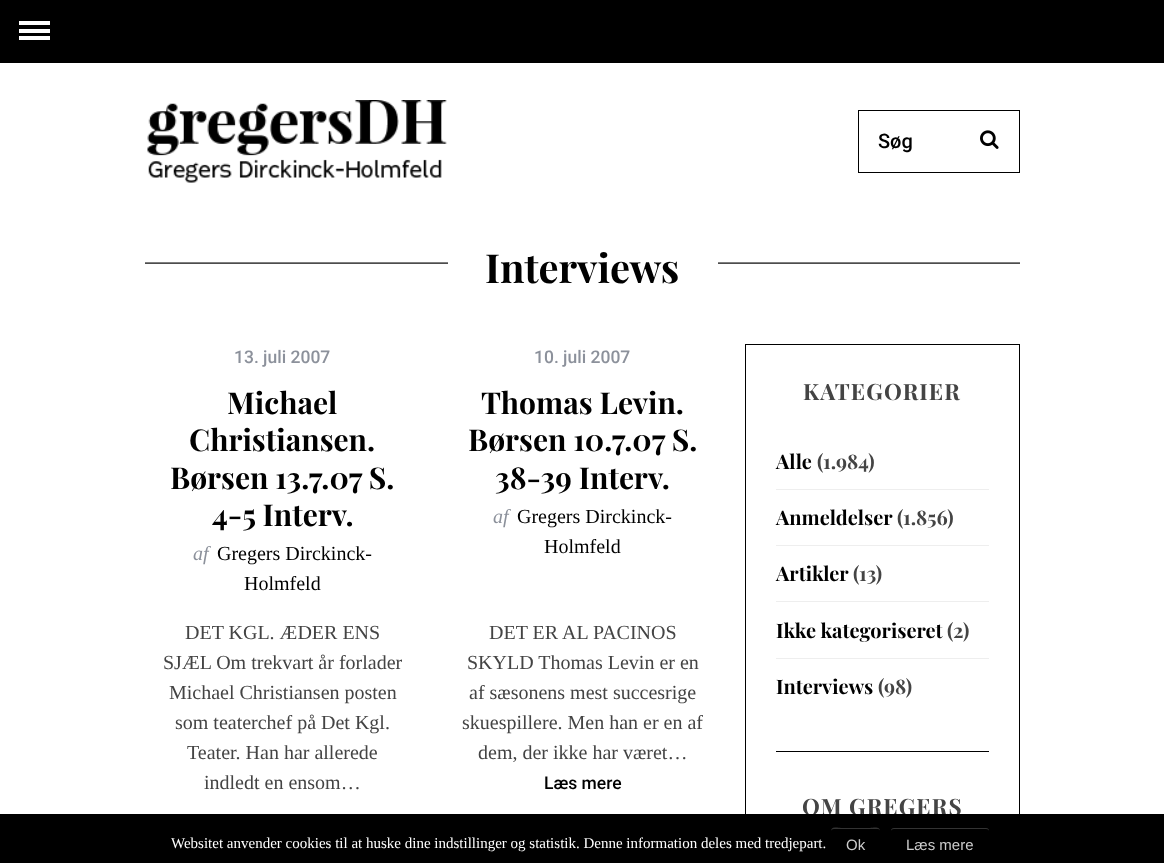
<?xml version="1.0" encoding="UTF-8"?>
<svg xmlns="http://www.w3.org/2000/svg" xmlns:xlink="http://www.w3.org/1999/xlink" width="1164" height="863">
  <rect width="100%" height="100%" fill="#ffffff" />
  <rect width="1164" height="63" fill="#000000" />
  <rect x="19" y="29" width="31" height="4" fill="#ffffff" />
  <rect x="19" y="21" width="31" height="4" fill="#ffffff" />
  <rect x="19" y="36" width="31" height="4" fill="#ffffff" />
  <image x="147" y="100" width="300" height="83" xlink:href="image1.png" />
  <rect x="858.5" y="110.5" width="161" height="62" fill="none" stroke="#000000" />
  <image x="980" y="130" width="19" height="19" xlink:href="image2.png" />
  <image x="145" y="262" width="875" height="2" xlink:href="image3.png" />
  <rect x="448" y="262" width="270" height="2" fill="#ffffff" />
  <rect x="745.5" y="344.5" width="274" height="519" fill="none" stroke="#000000" />
  <rect x="776" y="751" width="213" height="1" fill="#000000" />
  <rect x="776" y="489" width="213" height="1" fill="#eeeeee" />
  <rect x="776" y="545" width="213" height="1" fill="#eeeeee" />
  <rect x="776" y="601" width="213" height="1" fill="#eeeeee" />
  <rect x="776" y="658" width="213" height="1" fill="#eeeeee" />
  <text x="878" y="148" style="font-family: Roboto; font-size: 20px; font-weight: 500; fill: #000000">Søg</text>
  <text x="485" y="283" style="font-family: Playfair Display; font-size: 40px; font-weight: bold; fill: #000000">Interviews</text>
  <text x="234" y="363" style="font-family: Roboto; font-size: 17.5px; font-weight: 500; fill: #8c919b">13. juli 2007</text>
  <text x="227" y="414" style="font-family: Playfair Display; font-size: 30px; font-weight: bold; fill: #000000">Michael</text>
  <text x="189" y="451" style="font-family: Playfair Display; font-size: 30px; font-weight: bold; fill: #000000">Christiansen.</text>
  <text x="170" y="489" style="font-family: Playfair Display; font-size: 30px; font-weight: bold; fill: #000000">Børsen 13.7.07 S.</text>
  <text x="212" y="526" style="font-family: Playfair Display; font-size: 30px; font-weight: bold; fill: #000000">4-5 Interv.</text>
  <text x="193" y="560" style="font-family: Liberation Serif; font-size: 20px; font-style: italic; fill: #8c919b">af</text>
  <text x="217" y="560" style="font-family: Liberation Serif; font-size: 20px; fill: #000000">Gregers Dirckinck-</text>
  <text x="244" y="590" style="font-family: Liberation Serif; font-size: 20px; fill: #000000">Holmfeld</text>
  <text x="185" y="639" style="font-family: Liberation Serif; font-size: 20px; fill: #444444">DET KGL. ÆDER ENS</text>
  <text x="163" y="669" style="font-family: Liberation Serif; font-size: 20px; fill: #444444">SJÆL Om trekvart år forlader</text>
  <text x="169" y="699" style="font-family: Liberation Serif; font-size: 20px; fill: #444444">Michael Christiansen posten</text>
  <text x="175" y="729" style="font-family: Liberation Serif; font-size: 20px; fill: #444444">som teaterchef på Det Kgl.</text>
  <text x="187" y="759" style="font-family: Liberation Serif; font-size: 20px; fill: #444444">Teater. Han har allerede</text>
  <text x="204" y="789" style="font-family: Liberation Serif; font-size: 20px; fill: #444444">indledt en ensom…</text>
  <text x="534" y="363" style="font-family: Roboto; font-size: 17.5px; font-weight: 500; fill: #8c919b">10. juli 2007</text>
  <text x="481" y="414" style="font-family: Playfair Display; font-size: 30px; font-weight: bold; fill: #000000">Thomas Levin.</text>
  <text x="468" y="451" style="font-family: Playfair Display; font-size: 30px; font-weight: bold; fill: #000000">Børsen 10.7.07 S.</text>
  <text x="495" y="489" style="font-family: Playfair Display; font-size: 30px; font-weight: bold; fill: #000000">38-39 Interv.</text>
  <text x="493" y="523" style="font-family: Liberation Serif; font-size: 20px; font-style: italic; fill: #8c919b">af</text>
  <text x="517" y="523" style="font-family: Liberation Serif; font-size: 20px; fill: #000000">Gregers Dirckinck-</text>
  <text x="544" y="553" style="font-family: Liberation Serif; font-size: 20px; fill: #000000">Holmfeld</text>
  <text x="489" y="639" style="font-family: Liberation Serif; font-size: 20px; fill: #444444">DET ER AL PACINOS</text>
  <text x="467" y="669" style="font-family: Liberation Serif; font-size: 20px; fill: #444444">SKYLD Thomas Levin er en</text>
  <text x="469" y="699" style="font-family: Liberation Serif; font-size: 20px; fill: #444444">af sæsonens mest succesrige</text>
  <text x="462" y="729" style="font-family: Liberation Serif; font-size: 20px; fill: #444444">skuespillere. Men han er en af</text>
  <text x="478" y="759" style="font-family: Liberation Serif; font-size: 20px; fill: #444444">dem, der ikke har været…</text>
  <text x="544" y="789" style="font-family: Roboto; font-size: 17.5px; font-weight: 500; fill: #000000">Læs mere</text>
  <text x="803" y="400" style="font-family: Playfair Display; font-size: 22.5px; font-weight: bold; letter-spacing: 1.1px; fill: #444444">KATEGORIER</text>
  <text x="776" y="469" style="font-family: Playfair Display; font-size: 20px; font-weight: bold; fill: #000000">Alle</text>
  <text x="817" y="469" style="font-family: Playfair Display; font-size: 20px; font-weight: bold; fill: #444444">(1.984)</text>
  <text x="776" y="525" style="font-family: Playfair Display; font-size: 20px; font-weight: bold; fill: #000000">Anmeldelser</text>
  <text x="897" y="525" style="font-family: Playfair Display; font-size: 20px; font-weight: bold; fill: #444444">(1.856)</text>
  <text x="776" y="581" style="font-family: Playfair Display; font-size: 20px; font-weight: bold; fill: #000000">Artikler</text>
  <text x="853" y="581" style="font-family: Playfair Display; font-size: 20px; font-weight: bold; fill: #444444">(13)</text>
  <text x="776" y="638" style="font-family: Playfair Display; font-size: 20px; font-weight: bold; fill: #000000">Ikke kategoriseret</text>
  <text x="947" y="638" style="font-family: Playfair Display; font-size: 20px; font-weight: bold; fill: #444444">(2)</text>
  <text x="776" y="694" style="font-family: Playfair Display; font-size: 20px; font-weight: bold; fill: #000000">Interviews</text>
  <text x="878" y="694" style="font-family: Playfair Display; font-size: 20px; font-weight: bold; fill: #444444">(98)</text>
  <text x="802" y="815" style="font-family: Playfair Display; font-size: 22.5px; font-weight: bold; letter-spacing: 1.1px; fill: #444444">OM GREGERS</text>
  <rect y="814" width="1164" height="49" fill="#000000" />
  <text x="171" y="848" style="font-family: Liberation Serif; font-size: 15px; fill: #ffffff">Websitet anvender cookies til at huske dine indstillinger og statistik. Denne information deles med tredjepart.</text>
  <path d="M 834 829 h 44 c 1 0 2 1 2 2 c 0 -5 -7 -3 -10 -3 h -29 c -3 0 -10 -2 -10 3 c 0 -1 1 -2 3 -2 z" fill="#333333" />
  <rect x="830.5" y="826.5" width="50" height="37" rx="3.5" fill="none" stroke="#000000" />
  <text x="846" y="850" style="font-family: Liberation Sans; font-size: 15px; fill: #cccccc">Ok</text>
  <path d="M 894 829 h 92 c 2 0 3 1 3 2 v -1 c 0 -1 -1 -2 -3 -2 h -92 c -2 0 -3 1 -3 2 v 1 c 0 -1 1 -2 3 -2 z" fill="#333333" />
  <rect x="890.5" y="826.5" width="99" height="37" rx="3.5" fill="none" stroke="#000000" />
  <text x="906" y="850" style="font-family: Liberation Sans; font-size: 15px; fill: #cccccc">Læs mere</text>
</svg>
